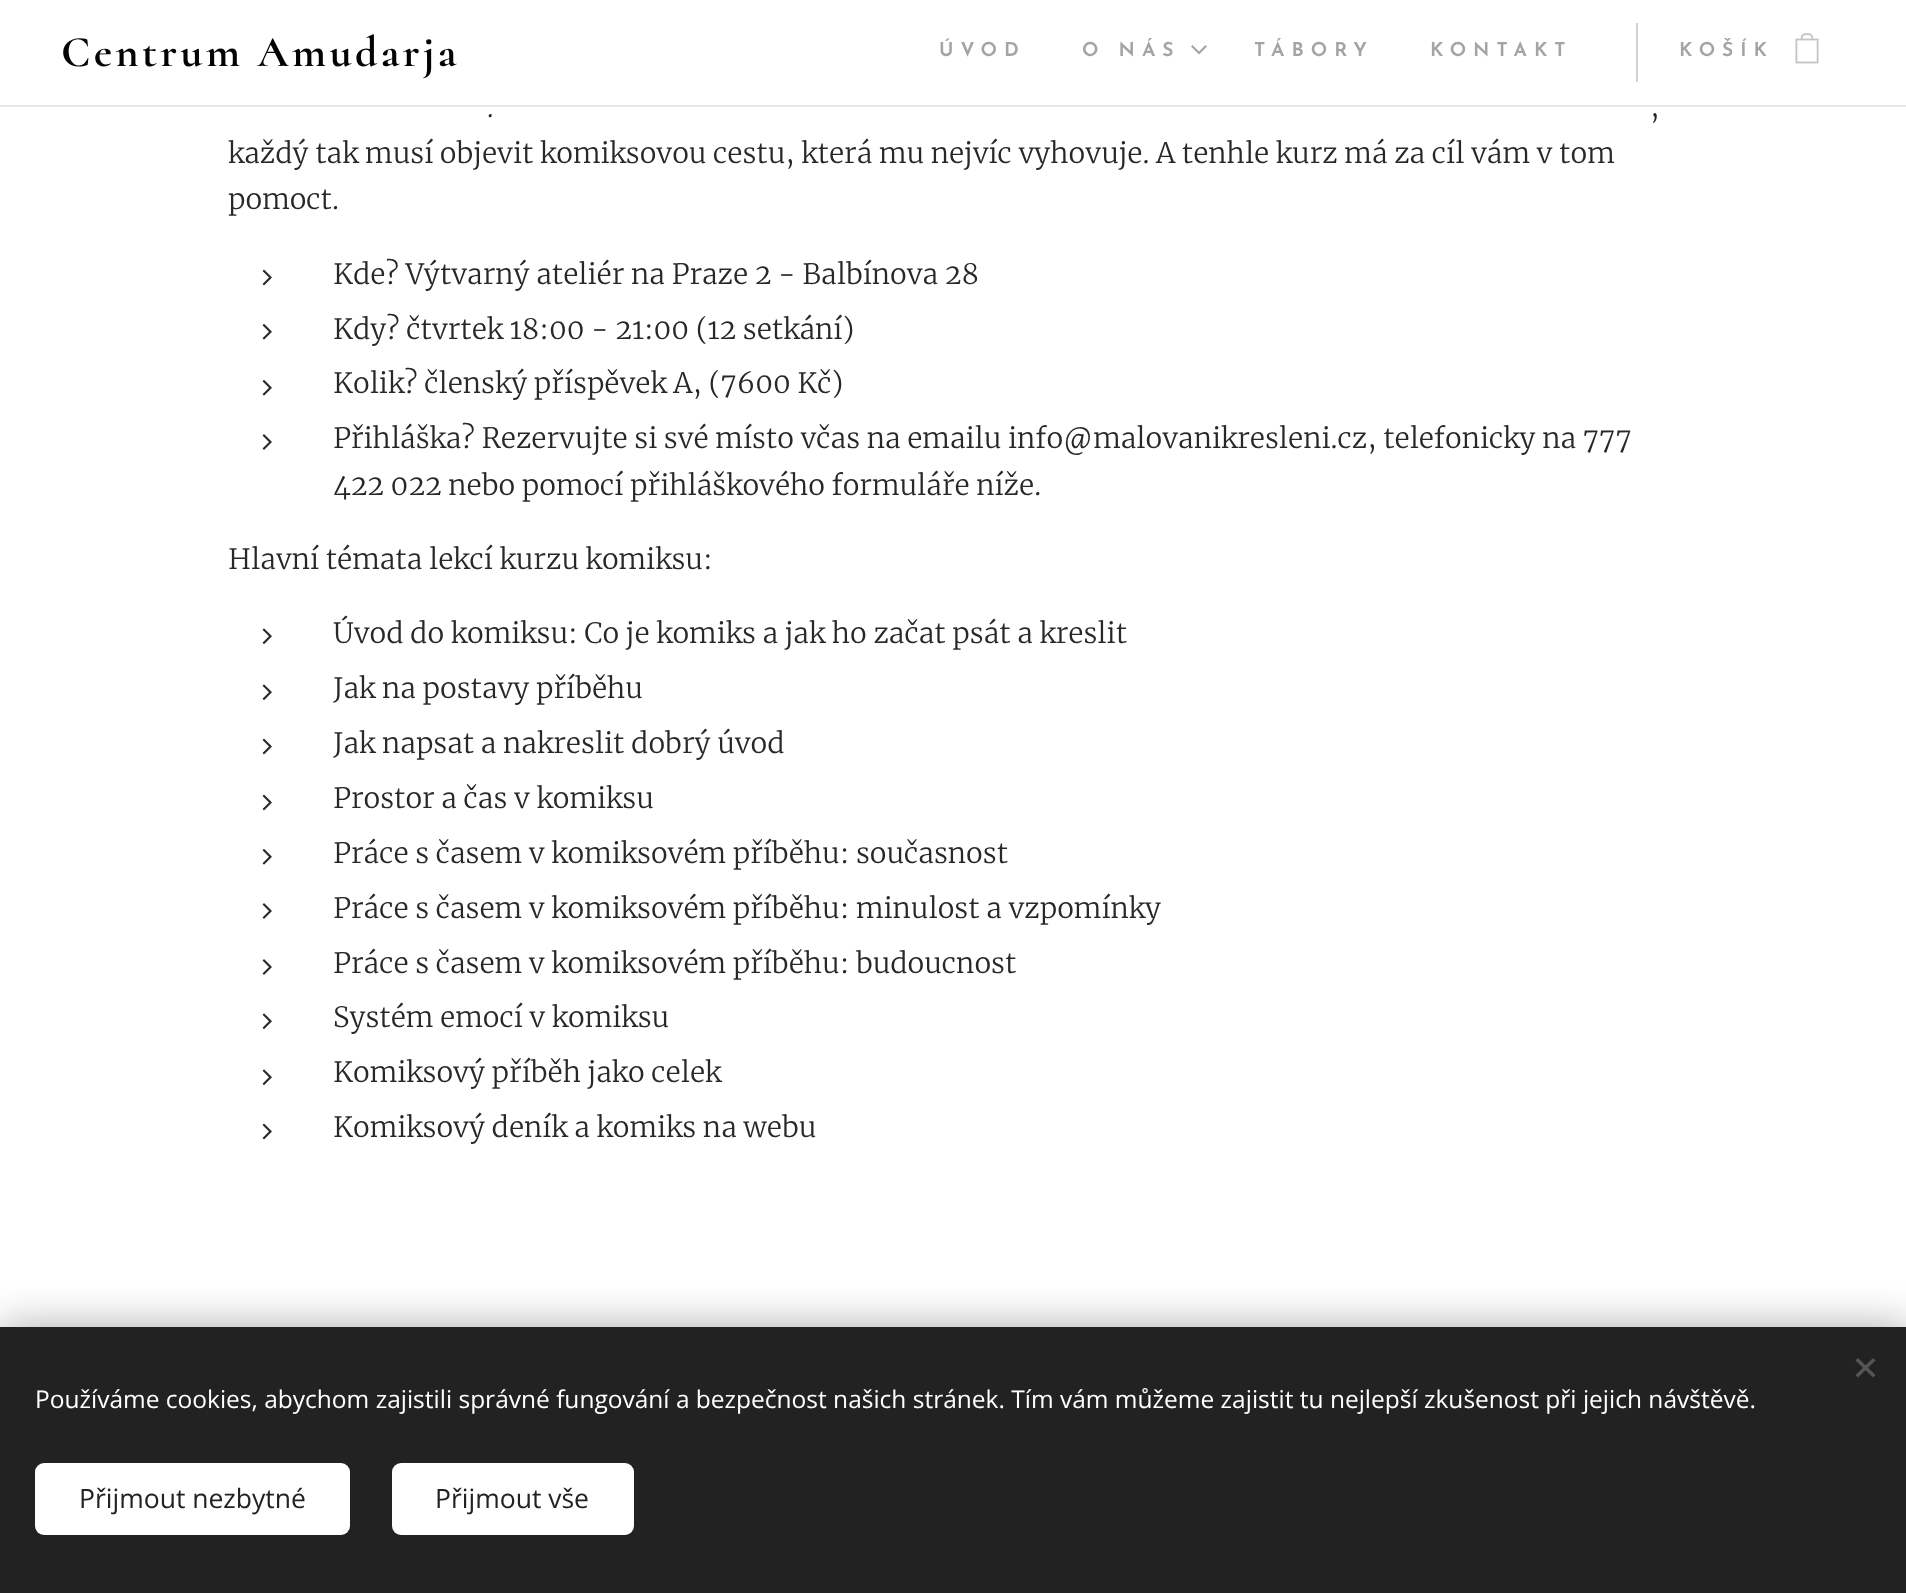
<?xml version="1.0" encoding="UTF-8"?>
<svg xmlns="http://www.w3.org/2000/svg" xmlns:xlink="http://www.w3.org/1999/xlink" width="1906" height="1593">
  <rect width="100%" height="100%" fill="#ffffff" />
  <rect y="105" width="1906" height="2" fill="#e8e8e8" />
  <image x="1191" y="45" width="16" height="10" xlink:href="image1.png" />
  <rect x="1636" y="23" width="2" height="59" fill="#d1d1d1" />
  <image x="1795" y="33" width="24" height="31" xlink:href="image2.png" />
  <image x="262" y="269" width="10" height="17" xlink:href="image3.png" />
  <image x="262" y="324" width="10" height="16" xlink:href="image4.png" />
  <image x="262" y="380" width="10" height="16" xlink:href="image4.png" />
  <image x="262" y="434" width="10" height="16" xlink:href="image5.png" />
  <image x="262" y="628" width="10" height="16" xlink:href="image6.png" />
  <image x="262" y="684" width="10" height="16" xlink:href="image6.png" />
  <image x="262" y="738" width="10" height="17" xlink:href="image3.png" />
  <image x="262" y="794" width="10" height="17" xlink:href="image3.png" />
  <image x="262" y="849" width="10" height="16" xlink:href="image4.png" />
  <image x="262" y="903" width="10" height="16" xlink:href="image5.png" />
  <image x="262" y="959" width="10" height="16" xlink:href="image5.png" />
  <image x="262" y="1013" width="10" height="16" xlink:href="image6.png" />
  <image x="262" y="1069" width="10" height="16" xlink:href="image6.png" />
  <image x="262" y="1123" width="10" height="17" xlink:href="image3.png" />
  <rect y="1327" width="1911" height="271" fill="#000000" fill-opacity="0.33" filter="blur(22px)" />
  <rect y="1327" width="1906" height="266" fill="#222222" />
  <path d="M 1855.5 1375 l 17.5 -17 l 2.5 2.5 l -17.5 17 z" fill="#555555" />
  <path d="M 1858 1358 l 17.5 17 l -2.5 2.5 l -17.5 -17 z" fill="#555555" />
  <rect x="35" y="1463" width="315" height="72" rx="9" fill="#ffffff" />
  <rect x="392" y="1463" width="242" height="72" rx="9" fill="#ffffff" />
  <text x="61" y="66" style="font-family: Cormorant; font-size: 43.75px; font-weight: bold; letter-spacing: 3.5px; fill: #030303">Centrum Amudarja</text>
  <text x="939" y="56" style="font-family: Josefin Sans; font-size: 19.25px; font-weight: 600; letter-spacing: 7px; fill: #a4a4a4">ÚVOD</text>
  <text x="1082" y="56" style="font-family: Josefin Sans; font-size: 19.25px; font-weight: 600; letter-spacing: 7px; fill: #a4a4a4">O NÁS</text>
  <text x="1254" y="56" style="font-family: Josefin Sans; font-size: 19.25px; font-weight: 600; letter-spacing: 7px; fill: #a4a4a4">TÁBORY</text>
  <text x="1430" y="56" style="font-family: Josefin Sans; font-size: 19.25px; font-weight: 600; letter-spacing: 7px; fill: #a4a4a4">KONTAKT</text>
  <text x="1679" y="56" style="font-family: Josefin Sans; font-size: 19.25px; font-weight: 600; letter-spacing: 7px; fill: #a4a4a4">KOŠÍK</text>
  <text x="488" y="117" style="font-family: Merriweather; font-size: 28px; font-weight: 300; font-style: italic; fill: #282828">.</text>
  <text x="1650" y="117" style="font-family: Merriweather; font-size: 28px; font-weight: 300; fill: #282828">,</text>
  <text x="228" y="163" style="font-family: Merriweather; font-size: 28px; font-weight: 300; fill: #282828">každý tak musí objevit komiksovou cestu, která mu nejvíc vyhovuje. A tenhle kurz má za cíl vám v tom</text>
  <text x="228" y="209" style="font-family: Merriweather; font-size: 28px; font-weight: 300; fill: #282828">pomoct.</text>
  <text x="333" y="284" style="font-family: Merriweather; font-size: 28px; font-weight: 300; fill: #282828">Kde? Výtvarný ateliér na Praze 2 - Balbínova 28</text>
  <text x="333" y="339" style="font-family: Merriweather; font-size: 28px; font-weight: 300; fill: #282828">Kdy? čtvrtek 18:00 - 21:00 (12 setkání)</text>
  <text x="333" y="393" style="font-family: Merriweather; font-size: 28px; font-weight: 300; fill: #282828">Kolik? členský příspěvek A, (7600 Kč)</text>
  <text x="333" y="448" style="font-family: Merriweather; font-size: 28px; font-weight: 300; fill: #282828">Přihláška? Rezervujte si své místo včas na emailu info@malovanikresleni.cz, telefonicky na 777</text>
  <text x="333" y="495" style="font-family: Merriweather; font-size: 28px; font-weight: 300; fill: #282828">422 022 nebo pomocí přihláškového formuláře níže.</text>
  <text x="228" y="569" style="font-family: Merriweather; font-size: 28px; font-weight: 300; fill: #282828">Hlavní témata lekcí kurzu komiksu:</text>
  <text x="333" y="643" style="font-family: Merriweather; font-size: 28px; font-weight: 300; fill: #282828">Úvod do komiksu: Co je komiks a jak ho začat psát a kreslit</text>
  <text x="333" y="698" style="font-family: Merriweather; font-size: 28px; font-weight: 300; fill: #282828">Jak na postavy příběhu</text>
  <text x="333" y="753" style="font-family: Merriweather; font-size: 28px; font-weight: 300; fill: #282828">Jak napsat a nakreslit dobrý úvod</text>
  <text x="333" y="808" style="font-family: Merriweather; font-size: 28px; font-weight: 300; fill: #282828">Prostor a čas v komiksu</text>
  <text x="333" y="863" style="font-family: Merriweather; font-size: 28px; font-weight: 300; fill: #282828">Práce s časem v komiksovém příběhu: současnost</text>
  <text x="333" y="918" style="font-family: Merriweather; font-size: 28px; font-weight: 300; fill: #282828">Práce s časem v komiksovém příběhu: minulost a vzpomínky</text>
  <text x="333" y="973" style="font-family: Merriweather; font-size: 28px; font-weight: 300; fill: #282828">Práce s časem v komiksovém příběhu: budoucnost</text>
  <text x="333" y="1027" style="font-family: Merriweather; font-size: 28px; font-weight: 300; fill: #282828">Systém emocí v komiksu</text>
  <text x="333" y="1082" style="font-family: Merriweather; font-size: 28px; font-weight: 300; fill: #282828">Komiksový příběh jako celek</text>
  <text x="333" y="1137" style="font-family: Merriweather; font-size: 28px; font-weight: 300; fill: #282828">Komiksový deník a komiks na webu</text>
  <text x="35" y="1408" style="font-family: Open Sans; font-size: 24.5px; fill: #ffffff">Používáme cookies, abychom zajistili správné fungování a bezpečnost našich stránek. Tím vám můžeme zajistit tu nejlepší zkušenost při jejich návštěvě.</text>
  <text x="79" y="1508" style="font-family: Open Sans; font-size: 26.5px; fill: #222222">Přijmout nezbytné</text>
  <text x="435" y="1508" style="font-family: Open Sans; font-size: 26.5px; fill: #222222">Přijmout vše</text>
</svg>
